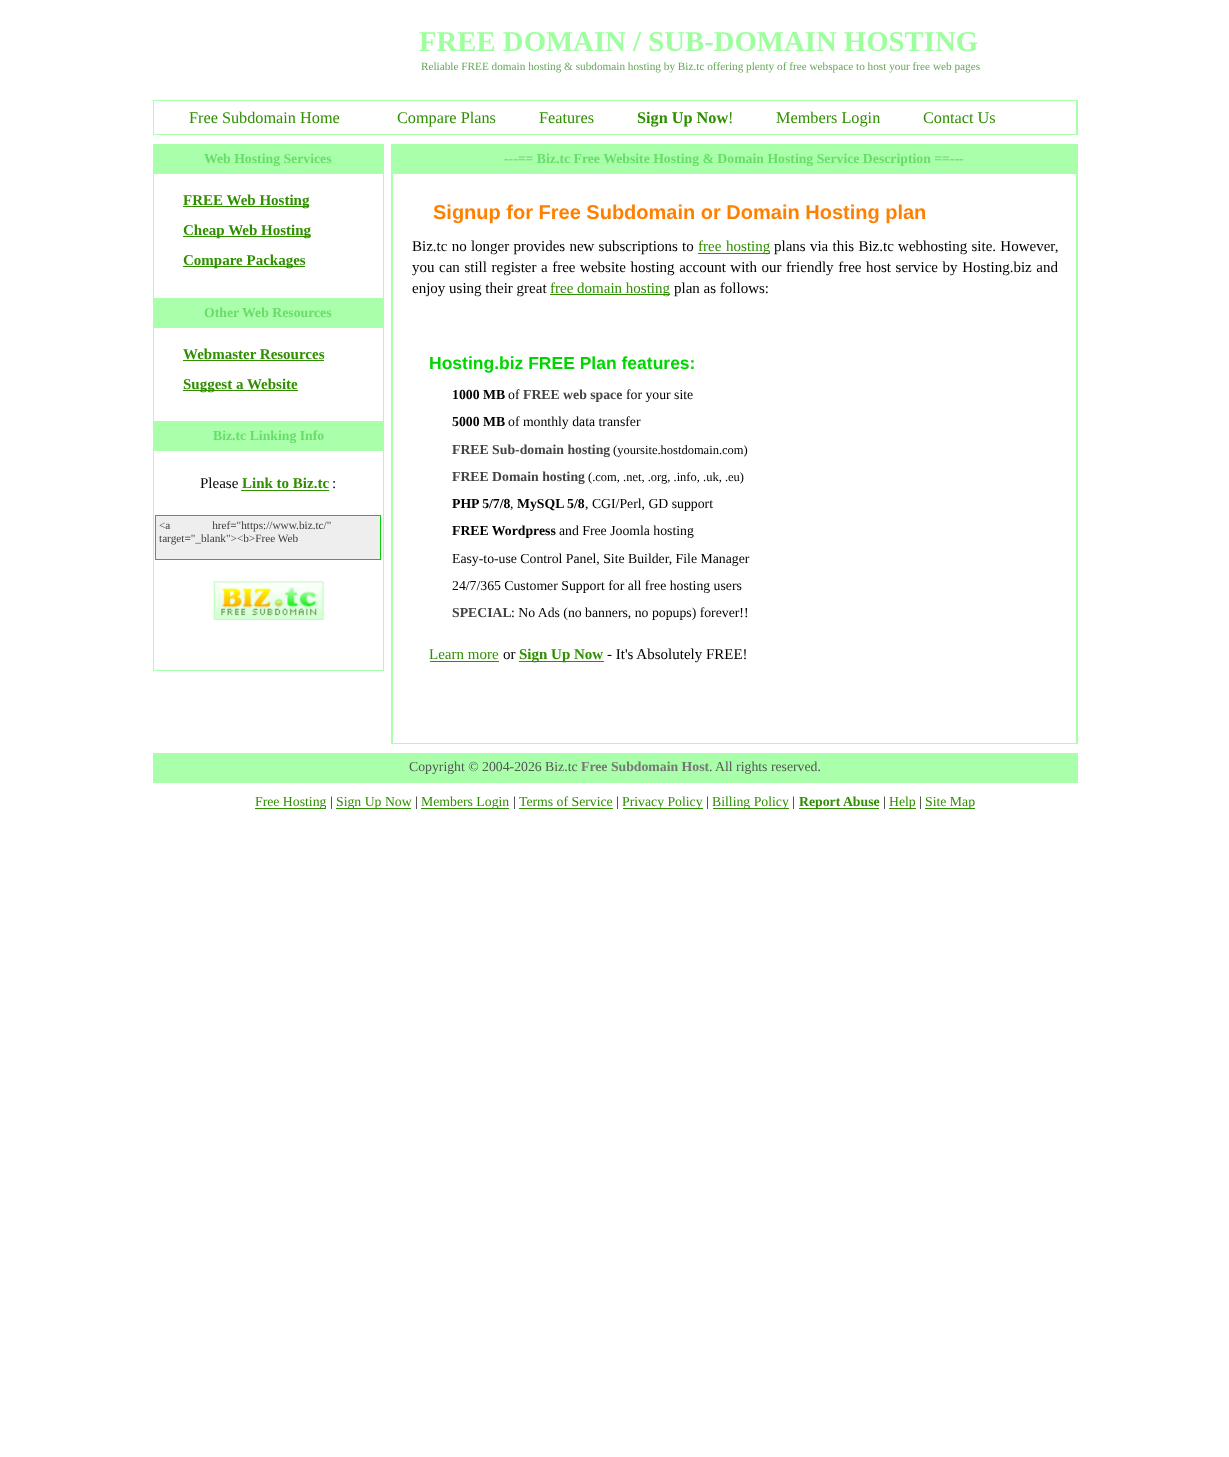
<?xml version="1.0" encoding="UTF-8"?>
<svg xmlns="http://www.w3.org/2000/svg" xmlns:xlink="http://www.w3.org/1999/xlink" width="1229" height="1457">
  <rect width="100%" height="100%" fill="#ffffff" />
  <rect x="153" y="100" width="925" height="35" fill="#aaffaa" />
  <rect x="154" y="101" width="922" height="33" fill="#ffffff" />
  <rect x="153" y="144" width="231" height="527" fill="#aaffaa" />
  <rect x="154" y="174" width="229" height="124" fill="#ffffff" />
  <rect x="183" y="206" width="126" height="1" fill="#308f00" />
  <rect x="183" y="236" width="127" height="1" fill="#308f00" />
  <rect x="183" y="266" width="122" height="1" fill="#308f00" />
  <rect x="154" y="328" width="229" height="93" fill="#ffffff" />
  <rect x="183" y="360" width="141" height="1" fill="#308f00" />
  <rect x="183" y="390" width="115" height="1" fill="#308f00" />
  <rect x="154" y="451" width="229" height="219" fill="#ffffff" />
  <rect x="241" y="490" width="88" height="1" fill="#308f00" />
  <rect x="155.5" y="515.5" width="225" height="44" fill="#eeeeee" stroke="#00d500" />
  <image x="213" y="581" width="111" height="39" xlink:href="image1.png" />
  <rect x="391" y="144" width="687" height="600" fill="#aaffaa" />
  <rect x="393" y="174" width="683" height="569" fill="#ffffff" />
  <rect x="698" y="253" width="72" height="1" fill="#308f00" />
  <rect x="550" y="294" width="120" height="1" fill="#308f00" />
  <rect x="430" y="661" width="69" height="1" fill="#308f00" />
  <rect x="519" y="661" width="85" height="1" fill="#308f00" />
  <rect x="153" y="753" width="925" height="30" fill="#aaffaa" />
  <rect x="255" y="808" width="71" height="1" fill="#308f00" />
  <rect x="336" y="808" width="75" height="1" fill="#308f00" />
  <rect x="421" y="808" width="88" height="1" fill="#308f00" />
  <rect x="519" y="808" width="94" height="1" fill="#308f00" />
  <rect x="623" y="808" width="80" height="1" fill="#308f00" />
  <rect x="713" y="808" width="76" height="1" fill="#308f00" />
  <rect x="799" y="808" width="80" height="1" fill="#308f00" />
  <rect x="889" y="808" width="27" height="1" fill="#308f00" />
  <rect x="925" y="808" width="50" height="1" fill="#308f00" />
  <text x="419" y="51" style="font-family: Liberation Serif; font-size: 28.75px; font-weight: bold; fill: #9dff9d">FREE DOMAIN / SUB-DOMAIN HOSTING</text>
  <text x="421" y="70" style="font-family: Liberation Serif; font-size: 11.25px; fill: #65a857">Reliable FREE domain hosting &amp; subdomain hosting by Biz.tc offering plenty of free webspace to host your free web pages</text>
  <text x="189" y="123" style="font-family: Liberation Serif; font-size: 16.25px; fill: #308f00">Free Subdomain Home</text>
  <text x="397" y="123" style="font-family: Liberation Serif; font-size: 16.25px; fill: #308f00">Compare Plans</text>
  <text x="539" y="123" style="font-family: Liberation Serif; font-size: 16.25px; fill: #308f00">Features</text>
  <text x="637" y="123" style="font-family: Liberation Serif; font-size: 16.25px; font-weight: bold; fill: #308f00">Sign Up Now</text>
  <text x="728" y="123" style="font-family: Liberation Serif; font-size: 16.25px; fill: #308f00">!</text>
  <text x="776" y="123" style="font-family: Liberation Serif; font-size: 16.25px; fill: #308f00">Members Login</text>
  <text x="923" y="123" style="font-family: Liberation Serif; font-size: 16.25px; fill: #308f00">Contact Us</text>
  <text x="204" y="163" style="font-family: Liberation Serif; font-size: 13.75px; font-weight: bold; fill: #69dd69">Web Hosting Services</text>
  <text x="183" y="205" style="font-family: Liberation Serif; font-size: 15px; font-weight: bold; fill: #308f00">FREE Web Hosting</text>
  <text x="183" y="235" style="font-family: Liberation Serif; font-size: 15px; font-weight: bold; fill: #308f00">Cheap Web Hosting</text>
  <text x="183" y="265" style="font-family: Liberation Serif; font-size: 15px; font-weight: bold; fill: #308f00">Compare Packages</text>
  <text x="204" y="317" style="font-family: Liberation Serif; font-size: 13.75px; font-weight: bold; fill: #69dd69">Other Web Resources</text>
  <text x="183" y="359" style="font-family: Liberation Serif; font-size: 15px; font-weight: bold; fill: #308f00">Webmaster Resources</text>
  <text x="183" y="389" style="font-family: Liberation Serif; font-size: 15px; font-weight: bold; fill: #308f00">Suggest a Website</text>
  <text x="213" y="440" style="font-family: Liberation Serif; font-size: 13.75px; font-weight: bold; fill: #69dd69">Biz.tc Linking Info</text>
  <text x="200" y="488" style="font-family: Liberation Serif; font-size: 15px; fill: #000000">Please</text>
  <text x="242" y="488" style="font-family: Liberation Serif; font-size: 15px; font-weight: bold; fill: #308f00">Link to Biz.tc</text>
  <text x="332" y="488" style="font-family: Liberation Serif; font-size: 15px; fill: #000000">:</text>
  <text x="159" y="529" word-spacing="39" style="font-family: Liberation Serif; font-size: 11.25px; fill: #3c3c3c">&lt;a href="https://www.biz.tc/"</text>
  <text x="159" y="542" style="font-family: Liberation Serif; font-size: 11.25px; fill: #3c3c3c">target="_blank"&gt;&lt;b&gt;Free Web</text>
  <text x="504" y="163" style="font-family: Liberation Serif; font-size: 13.75px; font-weight: bold; fill: #69dd69">---== Biz.tc Free Website Hosting &amp; Domain Hosting Service Description ==---</text>
  <text x="433" y="219" style="font-family: Liberation Sans; font-size: 20px; font-weight: bold; fill: #ff8000">Signup for Free Subdomain or Domain Hosting plan</text>
  <text x="412" y="251" word-spacing="0.5" style="font-family: Liberation Serif; font-size: 15px; fill: #000000">Biz.tc no longer provides new subscriptions to</text>
  <text x="698" y="251" word-spacing="1" style="font-family: Liberation Serif; font-size: 15px; fill: #308f00">free hosting</text>
  <text x="774" y="251" word-spacing="0.5" style="font-family: Liberation Serif; font-size: 15px; fill: #000000">plans via this Biz.tc webhosting site. However,</text>
  <text x="412" y="272" word-spacing="0.8" style="font-family: Liberation Serif; font-size: 15px; fill: #000000">you can still register a free website hosting account with our friendly free host service by Hosting.biz and</text>
  <text x="412" y="293" style="font-family: Liberation Serif; font-size: 15px; fill: #000000">enjoy using their great</text>
  <text x="550" y="293" style="font-family: Liberation Serif; font-size: 15px; fill: #308f00">free domain hosting</text>
  <text x="674" y="293" style="font-family: Liberation Serif; font-size: 15px; fill: #000000">plan as follows:</text>
  <text x="429" y="369" style="font-family: Liberation Sans; font-size: 17.5px; font-weight: bold; fill: #00d500">Hosting.biz FREE Plan features:</text>
  <text x="452" y="399" style="font-family: Liberation Serif; font-size: 13.75px; font-weight: bold; fill: #000000">1000 MB</text>
  <text x="508" y="399" style="font-family: Liberation Serif; font-size: 13.75px; fill: #000000">of</text>
  <text x="523" y="399" style="font-family: Liberation Serif; font-size: 13.75px; font-weight: bold; fill: #444444">FREE web space</text>
  <text x="626" y="399" style="font-family: Liberation Serif; font-size: 13.75px; fill: #000000">for your site</text>
  <text x="452" y="426" style="font-family: Liberation Serif; font-size: 13.75px; font-weight: bold; fill: #000000">5000 MB</text>
  <text x="508" y="426" style="font-family: Liberation Serif; font-size: 13.75px; fill: #000000">of monthly data transfer</text>
  <text x="452" y="454" style="font-family: Liberation Serif; font-size: 13.75px; font-weight: bold; fill: #444444">FREE Sub-domain hosting</text>
  <text x="613" y="454" style="font-family: Liberation Serif; font-size: 12.5px; fill: #000000">(yoursite.hostdomain.com)</text>
  <text x="452" y="481" style="font-family: Liberation Serif; font-size: 13.75px; font-weight: bold; fill: #444444">FREE Domain hosting</text>
  <text x="588" y="481" style="font-family: Liberation Serif; font-size: 12.5px; fill: #000000">(.com, .net, .org, .info, .uk, .eu)</text>
  <text x="452" y="508" style="font-family: Liberation Serif; font-size: 13.75px; font-weight: bold; fill: #000000">PHP 5/7/8</text>
  <text x="510" y="508" style="font-family: Liberation Serif; font-size: 13.75px; fill: #000000">,</text>
  <text x="517" y="508" style="font-family: Liberation Serif; font-size: 13.75px; font-weight: bold; fill: #000000">MySQL 5/8</text>
  <text x="585" y="508" style="font-family: Liberation Serif; font-size: 13.75px; fill: #000000">, CGI/Perl, GD support</text>
  <text x="452" y="535" style="font-family: Liberation Serif; font-size: 13.75px; font-weight: bold; fill: #000000">FREE Wordpress</text>
  <text x="559" y="535" style="font-family: Liberation Serif; font-size: 13.75px; fill: #000000">and Free Joomla hosting</text>
  <text x="452" y="563" style="font-family: Liberation Serif; font-size: 13.75px; fill: #000000">Easy-to-use Control Panel, Site Builder, File Manager</text>
  <text x="452" y="590" style="font-family: Liberation Serif; font-size: 13.75px; fill: #000000">24/7/365 Customer Support for all free hosting users</text>
  <text x="452" y="617" style="font-family: Liberation Serif; font-size: 13.75px; font-weight: bold; fill: #444444">SPECIAL</text>
  <text x="511" y="617" style="font-family: Liberation Serif; font-size: 13.75px; fill: #000000">: No Ads (no banners, no popups) forever!!</text>
  <text x="429" y="659" style="font-family: Liberation Serif; font-size: 15px; fill: #308f00">Learn more</text>
  <text x="503" y="659" style="font-family: Liberation Serif; font-size: 15px; fill: #000000">or</text>
  <text x="519" y="659" style="font-family: Liberation Serif; font-size: 15px; font-weight: bold; fill: #308f00">Sign Up Now</text>
  <text x="607" y="659" style="font-family: Liberation Serif; font-size: 15px; fill: #000000">- It's Absolutely FREE!</text>
  <text x="409" y="771" style="font-family: Liberation Serif; font-size: 13.75px; fill: #555555">Copyright © 2004-2026 Biz.tc</text>
  <text x="581" y="771" style="font-family: Liberation Serif; font-size: 13.75px; font-weight: bold; fill: #777777">Free Subdomain Host</text>
  <text x="709" y="771" style="font-family: Liberation Serif; font-size: 13.75px; fill: #555555">. All rights reserved.</text>
  <text x="255" y="806" style="font-family: Liberation Serif; font-size: 13.75px; fill: #308f00">Free Hosting</text>
  <text x="330" y="806" style="font-family: Liberation Serif; font-size: 13.75px; fill: #000000">|</text>
  <text x="336" y="806" style="font-family: Liberation Serif; font-size: 13.75px; fill: #308f00">Sign Up Now</text>
  <text x="415" y="806" style="font-family: Liberation Serif; font-size: 13.75px; fill: #000000">|</text>
  <text x="421" y="806" style="font-family: Liberation Serif; font-size: 13.75px; fill: #308f00">Members Login</text>
  <text x="513" y="806" style="font-family: Liberation Serif; font-size: 13.75px; fill: #000000">|</text>
  <text x="519" y="806" style="font-family: Liberation Serif; font-size: 13.75px; fill: #308f00">Terms of Service</text>
  <text x="616" y="806" style="font-family: Liberation Serif; font-size: 13.75px; fill: #000000">|</text>
  <text x="622" y="806" style="font-family: Liberation Serif; font-size: 13.75px; fill: #308f00">Privacy Policy</text>
  <text x="706" y="806" style="font-family: Liberation Serif; font-size: 13.75px; fill: #000000">|</text>
  <text x="712" y="806" style="font-family: Liberation Serif; font-size: 13.75px; fill: #308f00">Billing Policy</text>
  <text x="792" y="806" style="font-family: Liberation Serif; font-size: 13.75px; fill: #000000">|</text>
  <text x="799" y="806" style="font-family: Liberation Serif; font-size: 13.75px; font-weight: bold; fill: #308f00">Report Abuse</text>
  <text x="883" y="806" style="font-family: Liberation Serif; font-size: 13.75px; fill: #000000">|</text>
  <text x="889" y="806" style="font-family: Liberation Serif; font-size: 13.75px; fill: #308f00">Help</text>
  <text x="919" y="806" style="font-family: Liberation Serif; font-size: 13.75px; fill: #000000">|</text>
  <text x="925" y="806" style="font-family: Liberation Serif; font-size: 13.75px; fill: #308f00">Site Map</text>
</svg>
